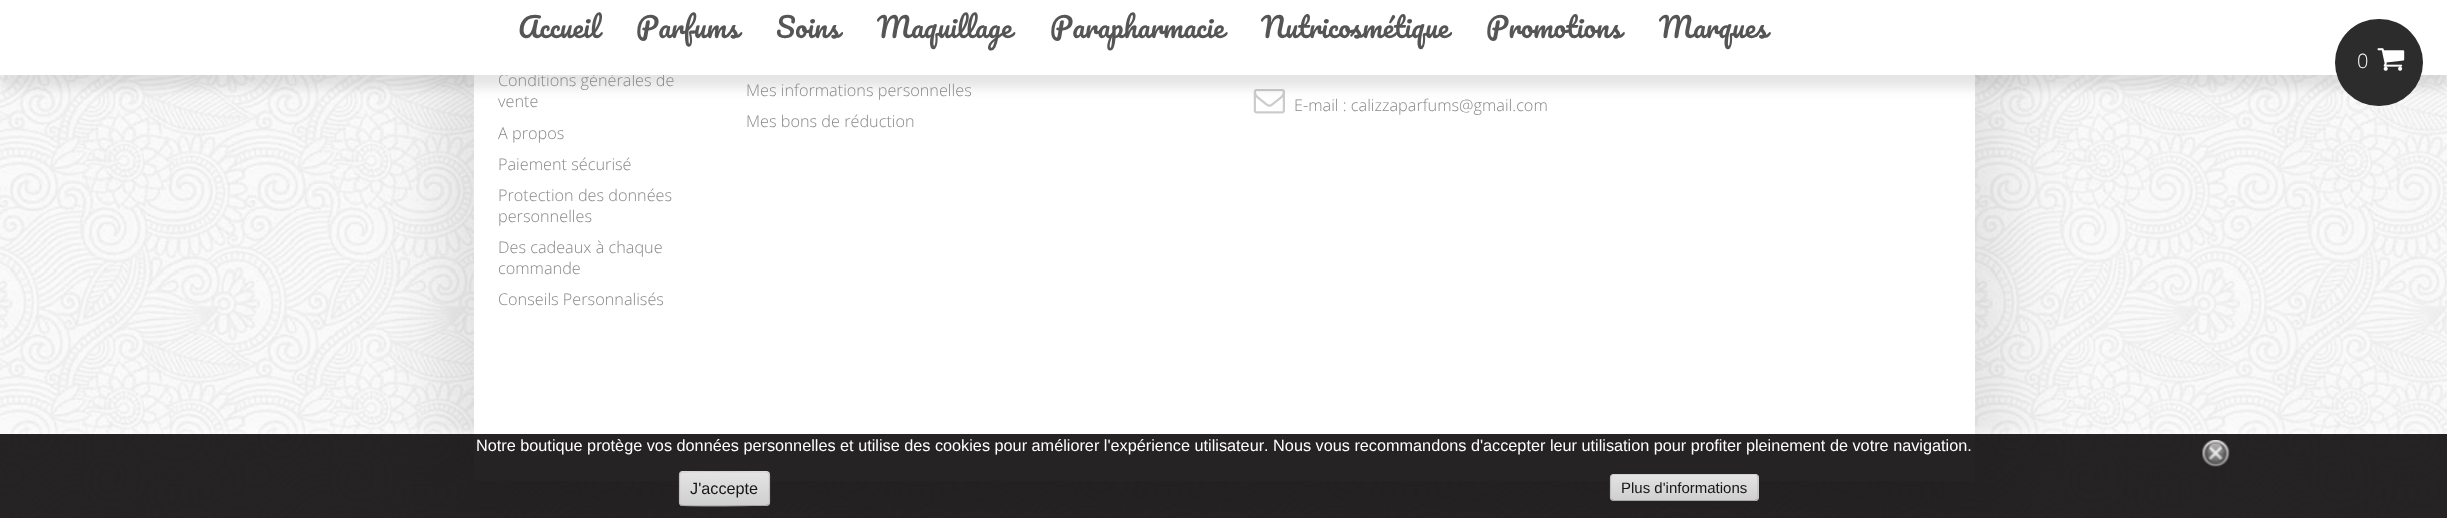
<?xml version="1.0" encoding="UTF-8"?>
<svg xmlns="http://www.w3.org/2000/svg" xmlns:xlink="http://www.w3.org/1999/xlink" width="2447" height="518">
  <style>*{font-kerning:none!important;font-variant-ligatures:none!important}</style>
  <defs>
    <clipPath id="clip1"><rect x="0" y="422" width="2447" height="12" /></clipPath>
    <clipPath id="clip2"><rect x="679" y="471" width="91" height="35" rx="4" /></clipPath>
    <linearGradient id="g1" gradientUnits="userSpaceOnUse" x1="724" y1="440" x2="724" y2="473"><stop offset="0" stop-color="#fafafa" /><stop offset="1" stop-color="#e6e6e6" /></linearGradient>
    <linearGradient id="g2" gradientUnits="userSpaceOnUse" x1="724" y1="473" x2="724" y2="505"><stop offset="0" stop-color="#f9f9f9" stop-opacity="0.9" /><stop offset="1" stop-color="#e3e3e3" stop-opacity="0.9" /></linearGradient>
    <linearGradient id="g3" gradientUnits="userSpaceOnUse" x1="724" y1="505" x2="724" y2="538"><stop offset="0" stop-color="#e4e3e3" /><stop offset="1" stop-color="#d0d0d0" /></linearGradient>
    <clipPath id="clip3"><rect x="1610" y="474" width="149" height="27" rx="4" /></clipPath>
    <linearGradient id="g4" gradientUnits="userSpaceOnUse" x1="1684" y1="450" x2="1684" y2="475"><stop offset="0" stop-color="#fafafa" /><stop offset="1" stop-color="#e6e6e6" /></linearGradient>
    <linearGradient id="g5" gradientUnits="userSpaceOnUse" x1="1684" y1="475" x2="1684" y2="500"><stop offset="0" stop-color="#f9f9f9" stop-opacity="0.9" /><stop offset="1" stop-color="#e3e3e3" stop-opacity="0.9" /></linearGradient>
    <linearGradient id="g6" gradientUnits="userSpaceOnUse" x1="1684" y1="500" x2="1684" y2="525"><stop offset="0" stop-color="#e4e3e3" /><stop offset="1" stop-color="#d0d0d0" /></linearGradient>
  </defs>
  <rect width="100%" height="100%" fill="#ffffff" />
  <image x="0" y="75" width="2447" height="443" xlink:href="image1.png" />
  <image x="503" y="496" width="1789" height="22" xlink:href="image5.png" />
  <rect x="449" y="-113" width="1551" height="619" fill="#000000" fill-opacity="0.1" filter="blur(37.5px)" />
  <rect x="474" y="75" width="1501" height="406" fill="#ffffff" />
  <image x="1253" y="89" width="32" height="25" xlink:href="image4.png" />
  <rect y="13" width="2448" height="75" fill="#000000" fill-opacity="0.1" filter="blur(6px)" />
  <g clip-path="url(#clip1)">
    <rect y="434" width="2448" height="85" fill="#ffffff" fill-opacity="0.9" filter="blur(6px)" />
  </g>
  <rect y="434" width="2447" height="84" fill="#0d0b0b" fill-opacity="0.9" />
  <image x="2202" y="440" width="28" height="27" xlink:href="image3.png" />
  <g clip-path="url(#clip2)">
    <rect x="679" y="471" width="91" height="2" fill="url(#g1)" />
    <rect x="679" y="473" width="91" height="32" fill="url(#g2)" />
    <rect x="679" y="505" width="91" height="1" fill="url(#g3)" />
  </g>
  <path d="M 680.5 473 v -0.5 c 2 -1.5 64 -0.5 72 -0.5 h 13.5 l 2.5 1" fill="none" stroke="#d1d1d1" stroke-width="1.2" />
  <path d="M 768.5 473 c 0.5 0.5 1 1 1 2 v 27.5 c 0 1 -0.5 1.5 -1 2" fill="none" stroke="#bbbbbb" stroke-opacity="0.9" stroke-width="1.2" />
  <path d="M 768.5 504.5 l -2.5 1 h -13.5 c -8 0 -70 1 -72 -0.5 v -0.5" fill="none" stroke="#a0a0a0" stroke-opacity="0.9" stroke-width="1.2" />
  <path d="M 680.5 504.5 c -1 -0.5 -1 -1 -1 -2 v -27.5 c 0 -1 0 -1.5 1 -2" fill="none" stroke="#bbbbbb" stroke-opacity="0.9" stroke-width="1.2" />
  <g clip-path="url(#clip3)">
    <rect x="1610" y="474" width="149" height="1" fill="url(#g4)" />
    <rect x="1610" y="475" width="149" height="25" fill="url(#g5)" />
    <rect x="1610" y="500" width="149" height="1" fill="url(#g6)" />
  </g>
  <path d="M 1611.5 475.5 l 2.5 -1 h 141 l 2 1" fill="none" stroke="#d1d1d1" stroke-width="1.2" />
  <path d="M 1757 475.5 c 1 0.5 1 1 1 2 v 20 c 0 1 0 1.5 -1 2" fill="none" stroke="#bbbbbb" stroke-opacity="0.9" stroke-width="1.2" />
  <path d="M 1757 499.5 l -2 1 h -141 l -2.5 -1" fill="none" stroke="#a0a0a0" stroke-opacity="0.9" stroke-width="1.2" />
  <path d="M 1611.5 499.5 c -0.5 -0.5 -1 -1 -1 -2 v -20 c 0 -1 0.5 -1.5 1 -2" fill="none" stroke="#bbbbbb" stroke-opacity="0.9" stroke-width="1.2" />
  <text x="476" y="451" style="font-family: Liberation Sans; font-size: 16.25px; fill: #ffffff">Notre boutique protège vos données personnelles et utilise des cookies pour améliorer l'expérience utilisateur. Nous vous recommandons d'accepter leur utilisation pour profiter pleinement de votre navigation.</text>
  <text x="690" y="494" style="font-family: Liberation Sans; font-size: 16.25px; fill: #161616">J'accepte</text>
  <text x="1621" y="493" style="font-family: Liberation Sans; font-size: 15px; fill: #161616">Plus d'informations</text>
  <text x="498" y="86" style="font-family: Open Sans; font-size: 16.25px; font-weight: 300; fill: #888888">Conditions générales de</text>
  <rect width="2447" height="75" fill="#ffffff" />
  <rect x="2335" y="19" width="88" height="87" rx="43.5" fill="#2c2c2c" />
  <image x="2377" y="48" width="28" height="23" xlink:href="image2.png" />
  <text x="2357" y="68" style="font-family: Open Sans; font-size: 20px; font-weight: 300; fill: #ffffff">0</text>
  <text x="1659" y="38" style="font-family: Pacifico; font-size: 27.5px; fill: #555555">Marques</text>
  <text x="1486" y="38" style="font-family: Pacifico; font-size: 27.5px; fill: #555555">Promotions</text>
  <text x="1261" y="38" style="font-family: Pacifico; font-size: 27.5px; fill: #555555">Nutricosmétique</text>
  <text x="1050" y="38" style="font-family: Pacifico; font-size: 27.5px; fill: #555555">Parapharmacie</text>
  <text x="877" y="38" style="font-family: Pacifico; font-size: 27.5px; fill: #555555">Maquillage</text>
  <text x="776" y="38" style="font-family: Pacifico; font-size: 27.5px; fill: #555555">Soins</text>
  <text x="636" y="38" style="font-family: Pacifico; font-size: 27.5px; fill: #555555">Parfums</text>
  <text x="518" y="38" style="font-family: Pacifico; font-size: 27.5px; fill: #555555">Accueil</text>
  <text x="498" y="107" style="font-family: Open Sans; font-size: 16.25px; font-weight: 300; fill: #888888">vente</text>
  <text x="498" y="139" style="font-family: Open Sans; font-size: 16.25px; font-weight: 300; fill: #888888">A propos</text>
  <text x="498" y="170" style="font-family: Open Sans; font-size: 16.25px; font-weight: 300; fill: #888888">Paiement sécurisé</text>
  <text x="498" y="201" style="font-family: Open Sans; font-size: 16.25px; font-weight: 300; fill: #888888">Protection des données</text>
  <text x="498" y="222" style="font-family: Open Sans; font-size: 16.25px; font-weight: 300; fill: #888888">personnelles</text>
  <text x="498" y="253" style="font-family: Open Sans; font-size: 16.25px; font-weight: 300; fill: #888888">Des cadeaux à chaque</text>
  <text x="498" y="274" style="font-family: Open Sans; font-size: 16.25px; font-weight: 300; fill: #888888">commande</text>
  <text x="498" y="305" style="font-family: Open Sans; font-size: 16.25px; font-weight: 300; fill: #888888">Conseils Personnalisés</text>
  <text x="746" y="96" style="font-family: Open Sans; font-size: 16.25px; font-weight: 300; fill: #888888">Mes informations personnelles</text>
  <text x="746" y="127" style="font-family: Open Sans; font-size: 16.25px; font-weight: 300; fill: #888888">Mes bons de réduction</text>
  <text x="1294" y="111" style="font-family: Open Sans; font-size: 16.25px; font-weight: 300; fill: #888888">E-mail : calizzaparfums@gmail.com</text>
</svg>
